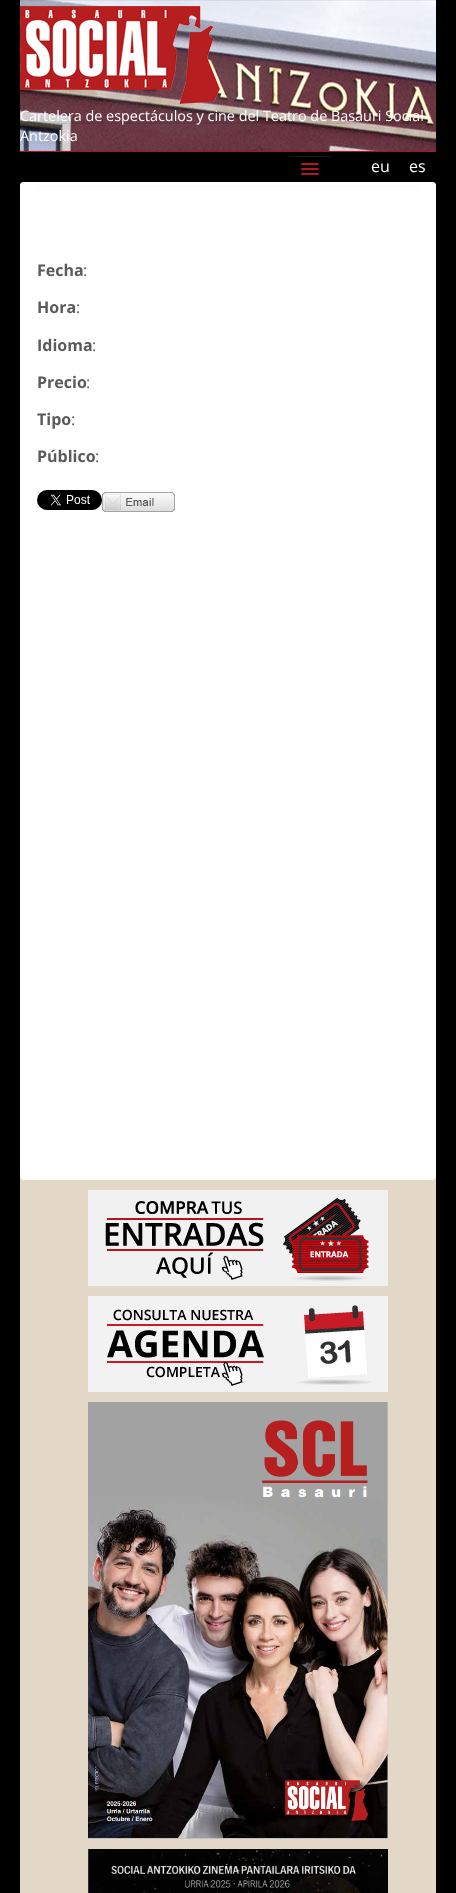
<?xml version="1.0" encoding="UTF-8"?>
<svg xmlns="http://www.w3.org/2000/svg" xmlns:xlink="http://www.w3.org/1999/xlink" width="456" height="1893">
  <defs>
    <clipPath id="clip1"><path d="M 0 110 h 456 v 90 h -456 z m 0 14 h 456 v 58 h -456 z" clip-rule="evenodd" /></clipPath>
  </defs>
  <rect width="100%" height="100%" fill="#000000" />
  <image x="20" y="0" width="416" height="152" xlink:href="image1.png" />
  <g clip-path="url(#clip1)">
    <rect y="126" width="456" height="58" fill="#000000" fill-opacity="0.25" filter="blur(5px)" />
  </g>
  <rect x="289" y="156" width="42" height="1" fill="#1a1a1a" />
  <rect x="301" y="163" width="18" height="2" rx="1" fill="#b51621" />
  <rect x="301" y="168" width="18" height="2" rx="1" fill="#b51621" />
  <rect x="301" y="173" width="18" height="2" rx="1" fill="#b51621" />
  <image x="20" y="6" width="200" height="98" xlink:href="image2.png" />
  <rect x="20" y="182" width="416" height="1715" rx="4" fill="#e3d8c8" />
  <rect x="20" y="182" width="416" height="998" rx="4" fill="#ffffff" />
  <rect x="37" y="186" width="382" height="1" fill="#f5f5f5" />
  <image x="37" y="490" width="65" height="20" xlink:href="image3.png" />
  <image x="102" y="492" width="73" height="20" xlink:href="image4.png" />
  <image x="88" y="1190" width="300" height="96" xlink:href="image5.png" />
  <image x="88" y="1296" width="300" height="96" xlink:href="image6.png" />
  <image x="88" y="1402" width="300" height="437" xlink:href="image7.png" />
  <image x="88" y="1849" width="300" height="44" xlink:href="image8.png" />
  <text x="20" y="121" style="font-family: Open Sans; font-size: 14.4px; fill: #ffffff">Cartelera de espectáculos y cine del Teatro de Basauri Social</text>
  <text x="20" y="141" style="font-family: Open Sans; font-size: 14.4px; fill: #ffffff">Antzokia</text>
  <text x="371" y="172" style="font-family: Open Sans; font-size: 16px; fill: #ffffff">eu</text>
  <text x="409" y="172" style="font-family: Open Sans; font-size: 16px; fill: #ffffff">es</text>
  <text x="37" y="276" style="font-family: Open Sans; font-size: 16px; font-weight: bold; fill: #5a5a5a">Fecha</text>
  <text x="83" y="276" style="font-family: Open Sans; font-size: 16px; fill: #5a5a5a">:</text>
  <text x="37" y="313" style="font-family: Open Sans; font-size: 16px; font-weight: bold; fill: #5a5a5a">Hora</text>
  <text x="76" y="313" style="font-family: Open Sans; font-size: 16px; fill: #5a5a5a">:</text>
  <text x="37" y="351" style="font-family: Open Sans; font-size: 16px; font-weight: bold; fill: #5a5a5a">Idioma</text>
  <text x="92" y="351" style="font-family: Open Sans; font-size: 16px; fill: #5a5a5a">:</text>
  <text x="37" y="388" style="font-family: Open Sans; font-size: 16px; font-weight: bold; fill: #5a5a5a">Precio</text>
  <text x="86" y="388" style="font-family: Open Sans; font-size: 16px; fill: #5a5a5a">:</text>
  <text x="37" y="425" style="font-family: Open Sans; font-size: 16px; font-weight: bold; fill: #5a5a5a">Tipo</text>
  <text x="71" y="425" style="font-family: Open Sans; font-size: 16px; fill: #5a5a5a">:</text>
  <text x="37" y="462" style="font-family: Open Sans; font-size: 16px; font-weight: bold; fill: #5a5a5a">Público</text>
  <text x="95" y="462" style="font-family: Open Sans; font-size: 16px; fill: #5a5a5a">:</text>
</svg>
